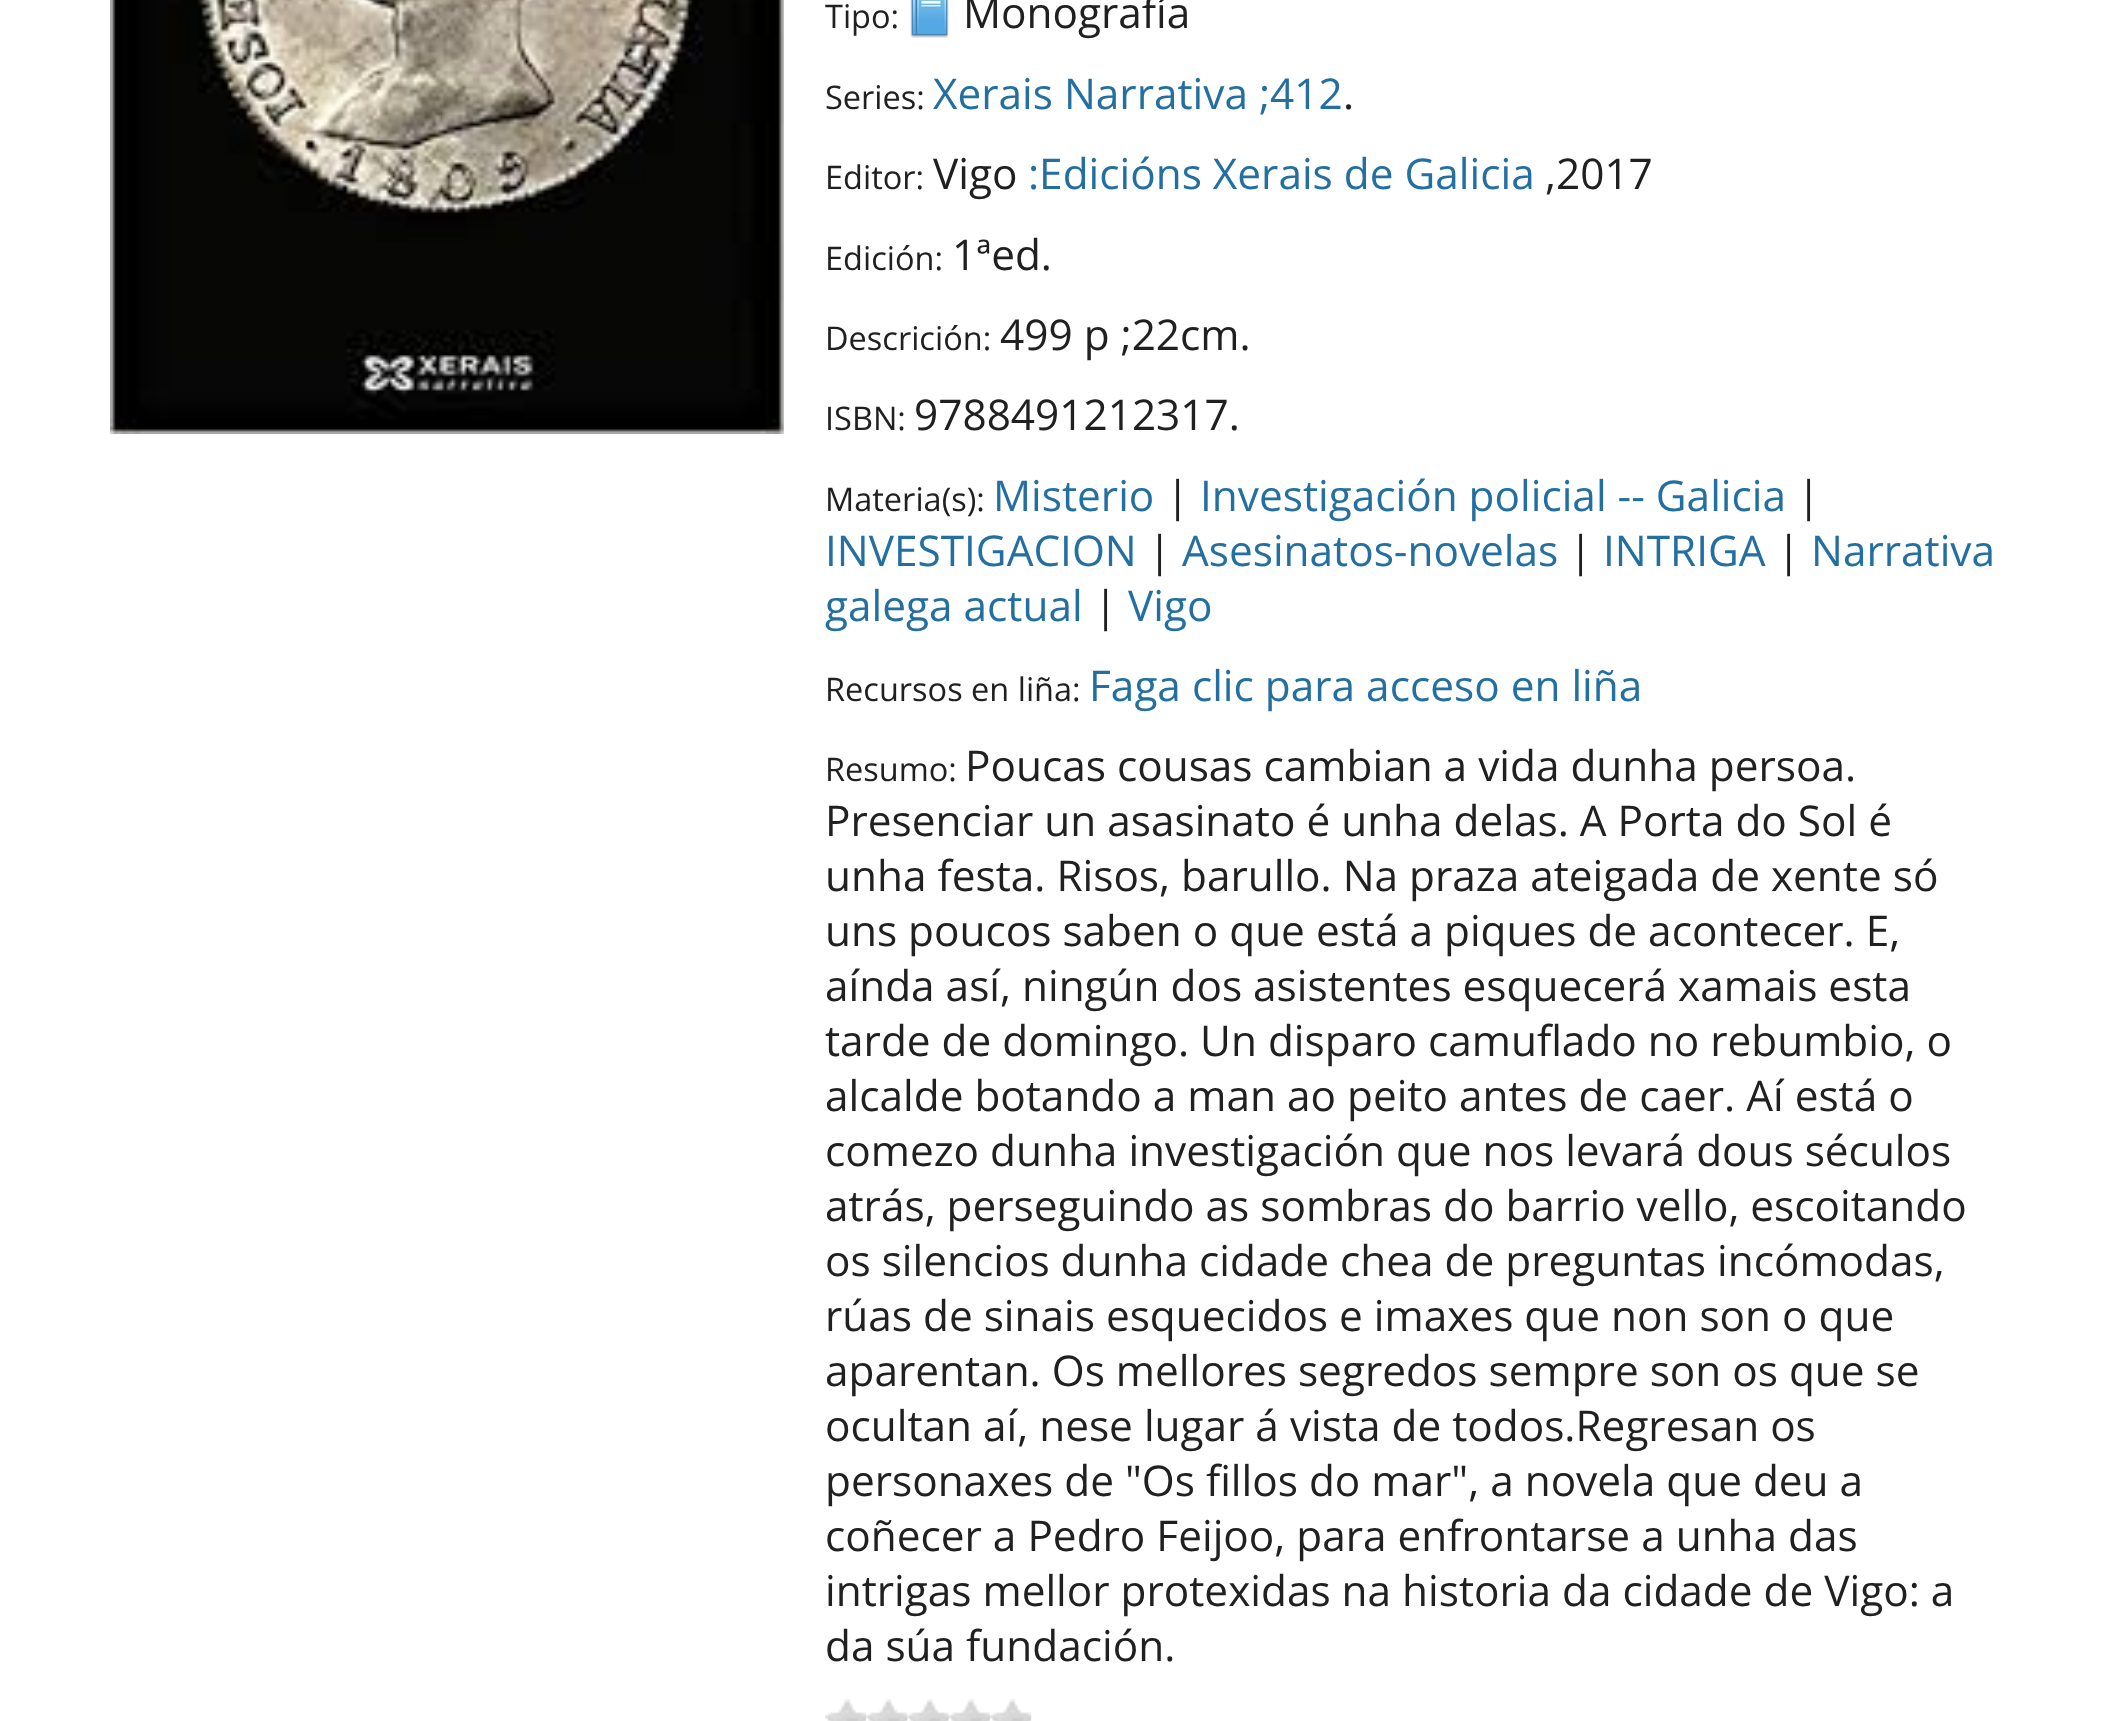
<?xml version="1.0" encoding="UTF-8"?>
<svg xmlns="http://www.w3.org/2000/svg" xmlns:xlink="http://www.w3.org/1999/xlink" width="2104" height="1721">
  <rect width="100%" height="100%" fill="#ffffff" />
  <image x="110" y="0" width="674" height="434" xlink:href="image1.png" />
  <image x="910" y="0" width="39" height="38" xlink:href="image2.png" />
  <image x="825" y="1699" width="42" height="22" xlink:href="image3.png" />
  <image x="866" y="1699" width="42" height="22" xlink:href="image4.png" />
  <image x="908" y="1699" width="41" height="22" xlink:href="image5.png" />
  <image x="949" y="1699" width="41" height="22" xlink:href="image6.png" />
  <image x="990" y="1699" width="42" height="22" xlink:href="image7.png" />
  <text x="825" y="28" style="font-family: Open Sans; font-size: 32.5px; fill: #202020">Tipo:</text>
  <text x="963" y="28" style="font-family: Open Sans; font-size: 42.35px; fill: #202020">Monografía</text>
  <text x="825" y="109" style="font-family: Open Sans; font-size: 32.5px; fill: #202020">Series:</text>
  <text x="933" y="109" style="font-family: Open Sans; font-size: 42.35px; fill: #236fa1">Xerais Narrativa ;412</text>
  <text x="1343" y="109" style="font-family: Open Sans; font-size: 42.35px; fill: #202020">.</text>
  <text x="825" y="189" style="font-family: Open Sans; font-size: 32.5px; fill: #202020">Editor:</text>
  <text x="933" y="189" style="font-family: Open Sans; font-size: 42.35px; fill: #202020">Vigo</text>
  <text x="1028" y="189" style="font-family: Open Sans; font-size: 42.35px; fill: #236fa1">:Edicións Xerais de Galicia</text>
  <text x="1545" y="189" style="font-family: Open Sans; font-size: 42.35px; fill: #202020">,2017</text>
  <text x="825" y="270" style="font-family: Open Sans; font-size: 32.5px; fill: #202020">Edición:</text>
  <text x="952" y="270" style="font-family: Open Sans; font-size: 42.35px; fill: #202020">1ªed.</text>
  <text x="825" y="350" style="font-family: Open Sans; font-size: 32.5px; fill: #202020">Descrición:</text>
  <text x="1000" y="350" style="font-family: Open Sans; font-size: 42.35px; fill: #202020">499 p ;22cm.</text>
  <text x="825" y="430" style="font-family: Open Sans; font-size: 32.5px; fill: #202020">ISBN:</text>
  <text x="914" y="430" style="font-family: Open Sans; font-size: 42.35px; fill: #202020">9788491212317.</text>
  <text x="825" y="511" style="font-family: Open Sans; font-size: 32.5px; fill: #202020">Materia(s):</text>
  <text x="993" y="511" style="font-family: Open Sans; font-size: 42.35px; fill: #236fa1">Misterio</text>
  <text x="1166" y="511" style="font-family: Open Sans; font-size: 42.35px; fill: #202020">|</text>
  <text x="1200" y="511" style="font-family: Open Sans; font-size: 42.35px; fill: #236fa1">Investigación policial -- Galicia</text>
  <text x="1797" y="511" style="font-family: Open Sans; font-size: 42.35px; fill: #202020">|</text>
  <text x="825" y="566" style="font-family: Open Sans; font-size: 42.35px; fill: #236fa1">INVESTIGACION</text>
  <text x="1148" y="566" style="font-family: Open Sans; font-size: 42.35px; fill: #202020">|</text>
  <text x="1182" y="566" style="font-family: Open Sans; font-size: 42.35px; fill: #236fa1">Asesinatos-novelas</text>
  <text x="1569" y="566" style="font-family: Open Sans; font-size: 42.35px; fill: #202020">|</text>
  <text x="1603" y="566" style="font-family: Open Sans; font-size: 42.35px; fill: #236fa1">INTRIGA</text>
  <text x="1777" y="566" style="font-family: Open Sans; font-size: 42.35px; fill: #202020">|</text>
  <text x="1811" y="566" style="font-family: Open Sans; font-size: 42.35px; fill: #236fa1">Narrativa</text>
  <text x="825" y="621" style="font-family: Open Sans; font-size: 42.35px; fill: #236fa1">galega actual</text>
  <text x="1094" y="621" style="font-family: Open Sans; font-size: 42.35px; fill: #202020">|</text>
  <text x="1128" y="621" style="font-family: Open Sans; font-size: 42.35px; fill: #236fa1">Vigo</text>
  <text x="825" y="701" style="font-family: Open Sans; font-size: 32.5px; fill: #202020">Recursos en liña:</text>
  <text x="1089" y="701" style="font-family: Open Sans; font-size: 42.35px; fill: #236fa1">Faga clic para acceso en liña</text>
  <text x="825" y="781" style="font-family: Open Sans; font-size: 32.5px; fill: #202020">Resumo:</text>
  <text x="965" y="781" style="font-family: Open Sans; font-size: 42.35px; fill: #202020">Poucas cousas cambian a vida dunha persoa.</text>
  <text x="825" y="836" style="font-family: Open Sans; font-size: 42.35px; fill: #202020">Presenciar un asasinato é unha delas. A Porta do Sol é</text>
  <text x="825" y="891" style="font-family: Open Sans; font-size: 42.35px; fill: #202020">unha festa. Risos, barullo. Na praza ateigada de xente só</text>
  <text x="825" y="946" style="font-family: Open Sans; font-size: 42.35px; fill: #202020">uns poucos saben o que está a piques de acontecer. E,</text>
  <text x="825" y="1001" style="font-family: Open Sans; font-size: 42.35px; fill: #202020">aínda así, ningún dos asistentes esquecerá xamais esta</text>
  <text x="825" y="1056" style="font-family: Open Sans; font-size: 42.35px; fill: #202020">tarde de domingo. Un disparo camuflado no rebumbio, o</text>
  <text x="825" y="1111" style="font-family: Open Sans; font-size: 42.35px; fill: #202020">alcalde botando a man ao peito antes de caer. Aí está o</text>
  <text x="825" y="1166" style="font-family: Open Sans; font-size: 42.35px; fill: #202020">comezo dunha investigación que nos levará dous séculos</text>
  <text x="825" y="1221" style="font-family: Open Sans; font-size: 42.35px; fill: #202020">atrás, perseguindo as sombras do barrio vello, escoitando</text>
  <text x="825" y="1276" style="font-family: Open Sans; font-size: 42.35px; fill: #202020">os silencios dunha cidade chea de preguntas incómodas,</text>
  <text x="825" y="1331" style="font-family: Open Sans; font-size: 42.35px; fill: #202020">rúas de sinais esquecidos e imaxes que non son o que</text>
  <text x="825" y="1386" style="font-family: Open Sans; font-size: 42.35px; fill: #202020">aparentan. Os mellores segredos sempre son os que se</text>
  <text x="825" y="1441" style="font-family: Open Sans; font-size: 42.35px; fill: #202020">ocultan aí, nese lugar á vista de todos.Regresan os</text>
  <text x="825" y="1496" style="font-family: Open Sans; font-size: 42.35px; fill: #202020">personaxes de "Os fillos do mar", a novela que deu a</text>
  <text x="825" y="1551" style="font-family: Open Sans; font-size: 42.35px; fill: #202020">coñecer a Pedro Feijoo, para enfrontarse a unha das</text>
  <text x="825" y="1606" style="font-family: Open Sans; font-size: 42.35px; fill: #202020">intrigas mellor protexidas na historia da cidade de Vigo: a</text>
  <text x="825" y="1661" style="font-family: Open Sans; font-size: 42.35px; fill: #202020">da súa fundación.</text>
</svg>
